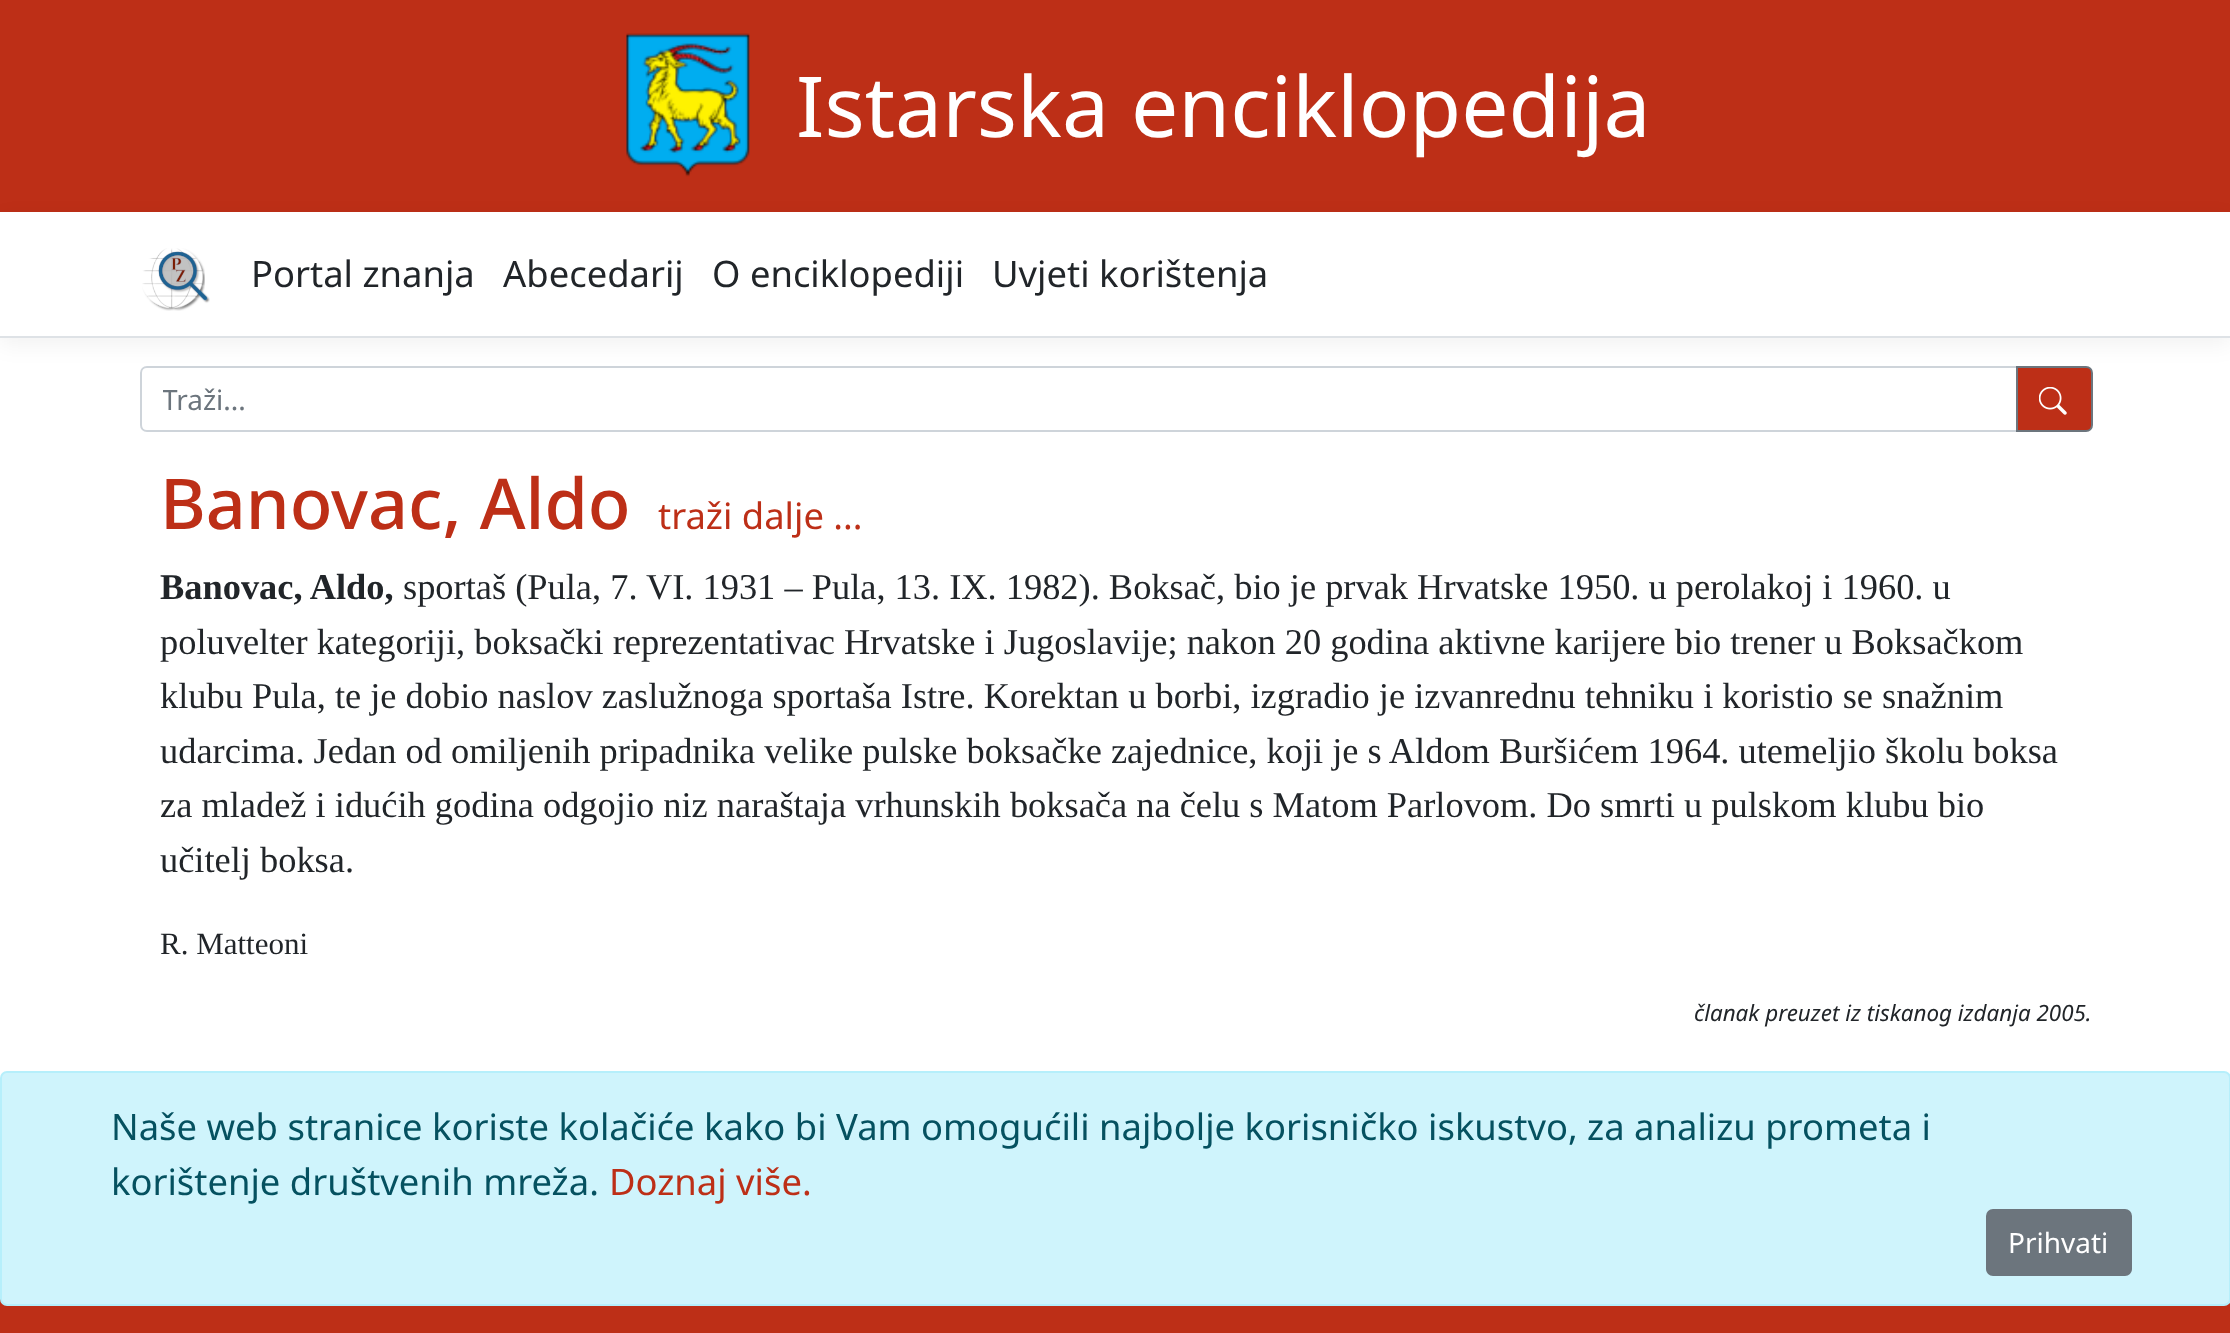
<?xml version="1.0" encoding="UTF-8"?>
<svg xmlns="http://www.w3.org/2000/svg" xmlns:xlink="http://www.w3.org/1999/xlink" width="2230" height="1333">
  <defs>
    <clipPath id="clip1"><rect x="163" y="380" width="1806" height="38" /></clipPath>
  </defs>
  <rect width="100%" height="100%" fill="#ffffff" />
  <rect width="2230" height="212" fill="#bd2f17" />
  <image x="626" y="33" width="124" height="144" xlink:href="image1.png" />
  <rect y="219" width="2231" height="126" fill="#000000" fill-opacity="0.05" filter="blur(10.5px)" />
  <rect y="212" width="2230" height="124" fill="#ffffff" />
  <rect y="336" width="2230" height="2" fill="#dee2e6" />
  <image x="142" y="248" width="68" height="63" xlink:href="image2.png" />
  <path d="M 147 367 h 1870 v 64 h -1870 c -3.5 0 -6 -2.5 -6 -6 v -52 c 0 -3.5 2.5 -6 6 -6 z" fill="none" stroke="#ced4da" stroke-width="2" />
  <path d="M 2017 367 h 69 c 3.5 0 6 2.5 6 6 v 52 c 0 3.5 -2.5 6 -6 6 h -69 z" fill="#bd2f17" stroke="#6c757d" stroke-width="2" />
  <image x="2039" y="387" width="28" height="28" xlink:href="image3.png" />
  <rect y="1299" width="2230" height="34" fill="#bd2f17" />
  <rect x="1" y="1072" width="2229" height="233" rx="6" fill="#cff4fc" stroke="#b6effb" stroke-width="2" />
  <rect x="1987" y="1210" width="144" height="65" rx="6" fill="#6c757d" stroke="#6c757d" stroke-width="2" />
  <text x="796" y="137" style="font-family: Noto Sans; font-size: 84px; fill: #ffffff">Istarska enciklopedija</text>
  <text x="251" y="287" style="font-family: Noto Sans; font-size: 36.4px; fill: #212529">Portal znanja</text>
  <text x="503" y="287" style="font-family: Noto Sans; font-size: 36.4px; fill: #212529">Abecedarij</text>
  <text x="712" y="287" style="font-family: Noto Sans; font-size: 36.4px; fill: #212529">O enciklopediji</text>
  <text x="992" y="287" style="font-family: Noto Sans; font-size: 36.4px; fill: #212529">Uvjeti korištenja</text>
  <g clip-path="url(#clip1)">
    <text x="162" y="410" style="font-family: Noto Sans; font-size: 28px; fill: #6c757d">Traži...</text>
  </g>
  <text x="160" y="529" style="font-family: Noto Sans; font-size: 70px; font-weight: 500; fill: #bd2f17">Banovac, Aldo</text>
  <text x="658" y="529" style="font-family: Noto Sans; font-size: 36.4px; fill: #bd2f17">traži dalje ...</text>
  <text x="160" y="599" style="font-family: Liberation Serif; font-size: 36.4px; font-weight: bold; fill: #212529">Banovac, Aldo,</text>
  <text x="403" y="599" style="font-family: Liberation Serif; font-size: 36.4px; fill: #212529">sportaš (Pula, 7. VI. 1931 – Pula, 13. IX. 1982). Boksač, bio je prvak Hrvatske 1950. u perolakoj i 1960. u</text>
  <text x="160" y="654" style="font-family: Liberation Serif; font-size: 36.4px; fill: #212529">poluvelter kategoriji, boksački reprezentativac Hrvatske i Jugoslavije; nakon 20 godina aktivne karijere bio trener u Boksačkom</text>
  <text x="160" y="708" style="font-family: Liberation Serif; font-size: 36.4px; fill: #212529">klubu Pula, te je dobio naslov zaslužnoga sportaša Istre. Korektan u borbi, izgradio je izvanrednu tehniku i koristio se snažnim</text>
  <text x="160" y="763" style="font-family: Liberation Serif; font-size: 36.4px; fill: #212529">udarcima. Jedan od omiljenih pripadnika velike pulske boksačke zajednice, koji je s Aldom Buršićem 1964. utemeljio školu boksa</text>
  <text x="160" y="817" style="font-family: Liberation Serif; font-size: 36.4px; fill: #212529">za mladež i idućih godina odgojio niz naraštaja vrhunskih boksača na čelu s Matom Parlovom. Do smrti u pulskom klubu bio</text>
  <text x="160" y="872" style="font-family: Liberation Serif; font-size: 36.4px; fill: #212529">učitelj boksa.</text>
  <text x="160" y="954" style="font-family: Liberation Serif; font-size: 31px; fill: #212529">R. Matteoni</text>
  <text x="1694" y="1021" style="font-family: Noto Sans; font-size: 22.4px; font-style: italic; fill: #212529">članak preuzet iz tiskanog izdanja 2005.</text>
  <text x="111" y="1140" style="font-family: Noto Sans; font-size: 36.4px; fill: #055160">Naše web stranice koriste kolačiće kako bi Vam omogućili najbolje korisničko iskustvo, za analizu prometa i</text>
  <text x="111" y="1195" style="font-family: Noto Sans; font-size: 36.4px; fill: #055160">korištenje društvenih mreža.</text>
  <text x="609" y="1195" style="font-family: Noto Sans; font-size: 36.4px; fill: #bd2f17">Doznaj više.</text>
  <text x="2008" y="1253" style="font-family: Noto Sans; font-size: 28px; fill: #ffffff">Prihvati</text>
</svg>
